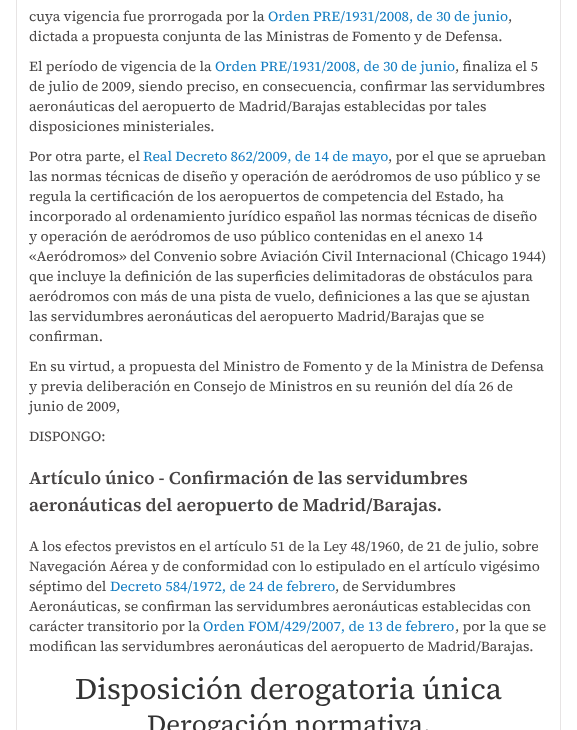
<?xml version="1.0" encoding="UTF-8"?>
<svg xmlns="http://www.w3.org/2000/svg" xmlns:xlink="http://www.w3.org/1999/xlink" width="577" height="730">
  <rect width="100%" height="100%" fill="#ffffff" />
  <path d="M 20 -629 h 537 c 2 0 4 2 4 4 v 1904 h -545 v -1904 c 0 -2 2 -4 4 -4 z m 0 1 h 537 c 2 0 3 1 3 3 v 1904 h -543 v -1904 c 0 -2 1 -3 3 -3 z" fill="#e7e4e4" fill-rule="evenodd" />
  <text x="29" y="21" style="font-family: 'Source Serif 4'; font-size: 14px; fill: #464343">cuya vigencia fue prorrogada por la</text>
  <text x="268" y="21" style="font-family: 'Source Serif 4'; font-size: 14px; fill: #127cc1">Orden PRE/1931/2008, de 30 de junio</text>
  <text x="508" y="21" style="font-family: 'Source Serif 4'; font-size: 14px; fill: #464343">,</text>
  <text x="29" y="41" style="font-family: 'Source Serif 4'; font-size: 14px; fill: #464343">dictada a propuesta conjunta de las Ministras de Fomento y de Defensa.</text>
  <text x="29" y="71" style="font-family: 'Source Serif 4'; font-size: 14px; fill: #464343">El período de vigencia de la</text>
  <text x="215" y="71" style="font-family: 'Source Serif 4'; font-size: 14px; fill: #127cc1">Orden PRE/1931/2008, de 30 de junio</text>
  <text x="455" y="71" style="font-family: 'Source Serif 4'; font-size: 14px; fill: #464343">, finaliza el 5</text>
  <text x="29" y="91" style="font-family: 'Source Serif 4'; font-size: 14px; fill: #464343">de julio de 2009, siendo preciso, en consecuencia, confirmar las servidumbres</text>
  <text x="29" y="111" style="font-family: 'Source Serif 4'; font-size: 14px; fill: #464343">aeronáuticas del aeropuerto de Madrid/Barajas establecidas por tales</text>
  <text x="29" y="131" style="font-family: 'Source Serif 4'; font-size: 14px; fill: #464343">disposiciones ministeriales.</text>
  <text x="29" y="161" style="font-family: 'Source Serif 4'; font-size: 14px; fill: #464343">Por otra parte, el</text>
  <text x="143" y="161" style="font-family: 'Source Serif 4'; font-size: 14px; fill: #127cc1">Real Decreto 862/2009, de 14 de mayo</text>
  <text x="388" y="161" style="font-family: 'Source Serif 4'; font-size: 14px; fill: #464343">, por el que se aprueban</text>
  <text x="29" y="181" style="font-family: 'Source Serif 4'; font-size: 14px; fill: #464343">las normas técnicas de diseño y operación de aeródromos de uso público y se</text>
  <text x="29" y="201" style="font-family: 'Source Serif 4'; font-size: 14px; fill: #464343">regula la certificación de los aeropuertos de competencia del Estado, ha</text>
  <text x="29" y="221" style="font-family: 'Source Serif 4'; font-size: 14px; fill: #464343">incorporado al ordenamiento jurídico español las normas técnicas de diseño</text>
  <text x="29" y="241" style="font-family: 'Source Serif 4'; font-size: 14px; fill: #464343">y operación de aeródromos de uso público contenidas en el anexo 14</text>
  <text x="29" y="261" style="font-family: 'Source Serif 4'; font-size: 14px; fill: #464343">«Aeródromos» del Convenio sobre Aviación Civil Internacional (Chicago 1944)</text>
  <text x="29" y="281" style="font-family: 'Source Serif 4'; font-size: 14px; fill: #464343">que incluye la definición de las superficies delimitadoras de obstáculos para</text>
  <text x="29" y="301" style="font-family: 'Source Serif 4'; font-size: 14px; fill: #464343">aeródromos con más de una pista de vuelo, definiciones a las que se ajustan</text>
  <text x="29" y="321" style="font-family: 'Source Serif 4'; font-size: 14px; fill: #464343">las servidumbres aeronáuticas del aeropuerto Madrid/Barajas que se</text>
  <text x="29" y="341" style="font-family: 'Source Serif 4'; font-size: 14px; fill: #464343">confirman.</text>
  <text x="29" y="371" style="font-family: 'Source Serif 4'; font-size: 14px; fill: #464343">En su virtud, a propuesta del Ministro de Fomento y de la Ministra de Defensa</text>
  <text x="29" y="391" style="font-family: 'Source Serif 4'; font-size: 14px; fill: #464343">y previa deliberación en Consejo de Ministros en su reunión del día 26 de</text>
  <text x="29" y="411" style="font-family: 'Source Serif 4'; font-size: 14px; fill: #464343">junio de 2009,</text>
  <text x="29" y="441" style="font-family: 'Source Serif 4'; font-size: 14px; fill: #464343">DISPONGO:</text>
  <text x="29" y="484" style="font-family: 'Source Serif 4'; font-size: 18px; font-weight: 600; fill: #464343">Artículo único - Confirmación de las servidumbres</text>
  <text x="29" y="511" style="font-family: 'Source Serif 4'; font-size: 18px; font-weight: 600; fill: #464343">aeronáuticas del aeropuerto de Madrid/Barajas.</text>
  <text x="29" y="551" style="font-family: 'Source Serif 4'; font-size: 14px; fill: #464343">A los efectos previstos en el artículo 51 de la Ley 48/1960, de 21 de julio, sobre</text>
  <text x="29" y="571" style="font-family: 'Source Serif 4'; font-size: 14px; fill: #464343">Navegación Aérea y de conformidad con lo estipulado en el artículo vigésimo</text>
  <text x="29" y="591" style="font-family: 'Source Serif 4'; font-size: 14px; fill: #464343">séptimo del</text>
  <text x="110" y="591" style="font-family: 'Source Serif 4'; font-size: 14px; fill: #127cc1">Decreto 584/1972, de 24 de febrero</text>
  <text x="335" y="591" style="font-family: 'Source Serif 4'; font-size: 14px; fill: #464343">, de Servidumbres</text>
  <text x="29" y="611" style="font-family: 'Source Serif 4'; font-size: 14px; fill: #464343">Aeronáuticas, se confirman las servidumbres aeronáuticas establecidas con</text>
  <text x="29" y="631" style="font-family: 'Source Serif 4'; font-size: 14px; fill: #464343">carácter transitorio por la</text>
  <text x="203" y="631" style="font-family: 'Source Serif 4'; font-size: 14px; fill: #127cc1">Orden FOM/429/2007, de 13 de febrero</text>
  <text x="455" y="631" style="font-family: 'Source Serif 4'; font-size: 14px; fill: #464343">, por la que se</text>
  <text x="29" y="651" style="font-family: 'Source Serif 4'; font-size: 14px; fill: #464343">modifican las servidumbres aeronáuticas del aeropuerto de Madrid/Barajas.</text>
  <text x="75" y="699" style="font-family: 'Source Serif 4'; font-size: 30px; fill: #333333">Disposición derogatoria única</text>
  <text x="147" y="733" style="font-family: 'Source Serif 4'; font-size: 26px; fill: #333333">Derogación normativa.</text>
</svg>
